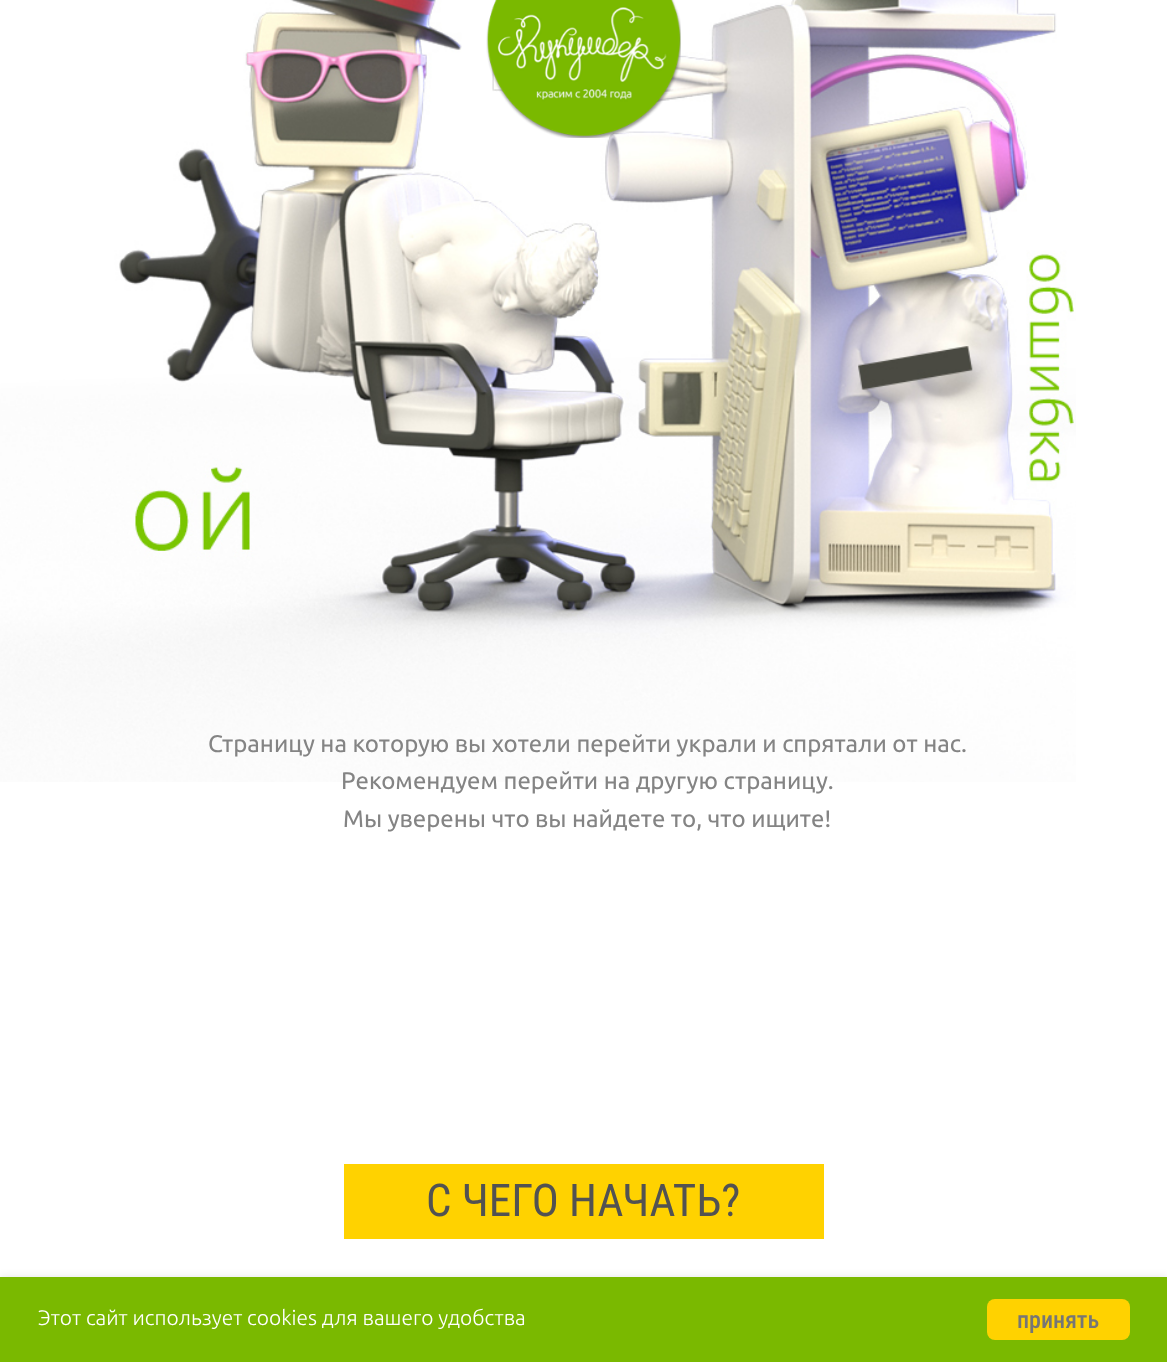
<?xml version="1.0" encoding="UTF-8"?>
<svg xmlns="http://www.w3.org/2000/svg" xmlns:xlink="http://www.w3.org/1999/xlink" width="1167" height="1362">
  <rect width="100%" height="100%" fill="#ffffff" />
  <image x="0" y="0" width="1076" height="782" xlink:href="image2.png" />
  <image x="486" y="0" width="195" height="138" xlink:href="image1.png" />
  <rect x="344" y="1164" width="480" height="75" fill="#ffd200" />
  <rect y="1277" width="1167" height="85" fill="#000000" fill-opacity="0.1" filter="blur(4px)" />
  <rect y="1277" width="1167" height="85" fill="#7ab900" />
  <rect x="987" y="1299" width="143" height="41" rx="8" fill="#ffd200" />
  <text x="208" y="752" style="font-family: Ubuntu; font-size: 24px; fill: #848484">Страницу на которую вы хотели перейти украли и спрятали от нас.</text>
  <text x="341" y="789" style="font-family: Ubuntu; font-size: 24px; fill: #848484">Рекомендуем перейти на другую страницу.</text>
  <text x="343" y="827" style="font-family: Ubuntu; font-size: 24px; fill: #848484">Мы уверены что вы найдете то, что ищите!</text>
  <text x="426" y="1216" style="font-family: Roboto Condensed; font-size: 45px; fill: #525252">С ЧЕГО НАЧАТЬ?</text>
  <text x="38" y="1325" style="font-family: Ubuntu; font-size: 21px; font-weight: 300; fill: #ffffff">Этот сайт использует cookies для вашего удобства</text>
  <text x="1017" y="1328" style="font-family: Roboto Condensed; font-size: 24px; font-weight: 500; fill: #767676">принять</text>
</svg>
